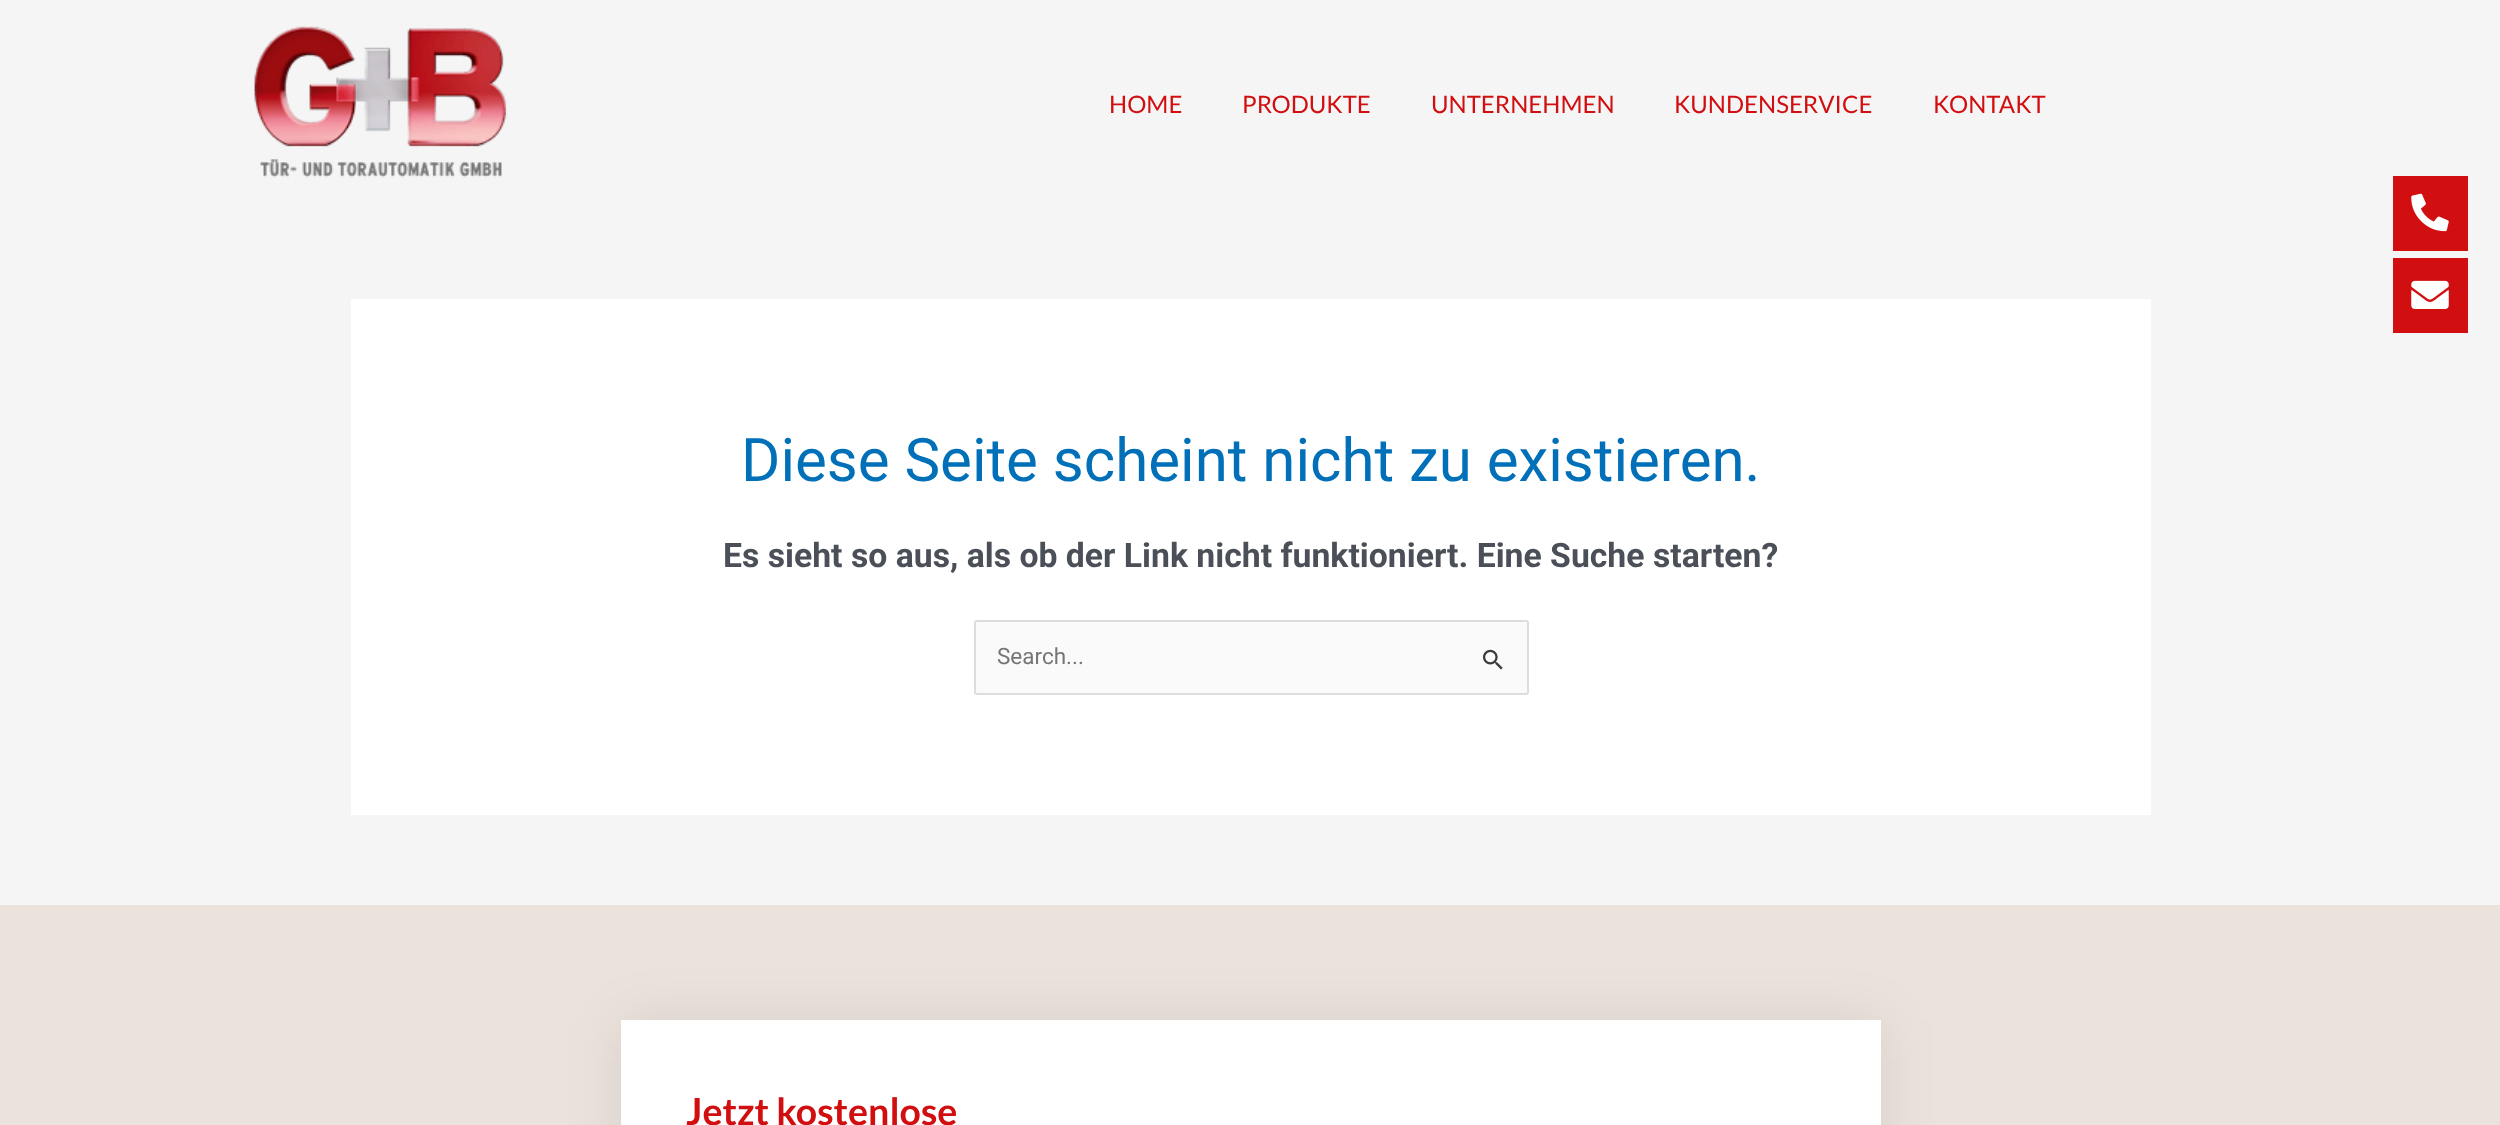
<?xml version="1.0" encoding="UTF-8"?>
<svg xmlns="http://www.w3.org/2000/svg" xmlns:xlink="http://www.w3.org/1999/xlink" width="2500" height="1125">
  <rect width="100%" height="100%" fill="#f5f5f5" />
  <image x="254" y="26" width="253" height="152" xlink:href="image1.png" />
  <rect x="2393" y="176" width="75" height="75" fill="#d10f11" />
  <image x="2411" y="193" width="38" height="39" xlink:href="image2.png" />
  <rect x="2393" y="258" width="75" height="75" fill="#d10f11" />
  <image x="2411" y="280" width="38" height="29" xlink:href="image3.png" />
  <rect x="351" y="299" width="1800" height="516" fill="#ffffff" />
  <rect x="975" y="621" width="553" height="73" rx="2" fill="#fafafa" stroke="#dddddd" stroke-width="2" />
  <image x="1483" y="649" width="20" height="21" xlink:href="image4.png" />
  <rect y="905" width="2500" height="220" fill="#ebe2dc" />
  <rect x="621" y="1020" width="1260" height="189" fill="#000000" fill-opacity="0.08" filter="blur(28px)" />
  <rect x="621" y="1020" width="1260" height="105" fill="#ffffff" />
  <text x="1109" y="113" style="font-family: Lato; font-size: 24px; fill: #d10f11">HOME</text>
  <text x="1242" y="113" style="font-family: Lato; font-size: 24px; fill: #d10f11">PRODUKTE</text>
  <text x="1431" y="113" style="font-family: Lato; font-size: 24px; fill: #d10f11">UNTERNEHMEN</text>
  <text x="1674" y="113" style="font-family: Lato; font-size: 24px; fill: #d10f11">KUNDENSERVICE</text>
  <text x="1933" y="113" style="font-family: Lato; font-size: 24px; fill: #d10f11">KONTAKT</text>
  <text x="741" y="481" style="font-family: Roboto; font-size: 60px; fill: #0170b9">Diese Seite scheint nicht zu existieren.</text>
  <text x="723" y="567" style="font-family: Roboto; font-size: 33.75px; font-weight: bold; fill: #4b4f58">Es sieht so aus, als ob der Link nicht funktioniert. Eine Suche starten?</text>
  <text x="997" y="664" style="font-family: Roboto; font-size: 22.5px; fill: #757575">Search...</text>
  <text x="686" y="1125" style="font-family: Lato; font-size: 37.5px; font-weight: bold; fill: #d10f11">Jetzt kostenlose</text>
</svg>
